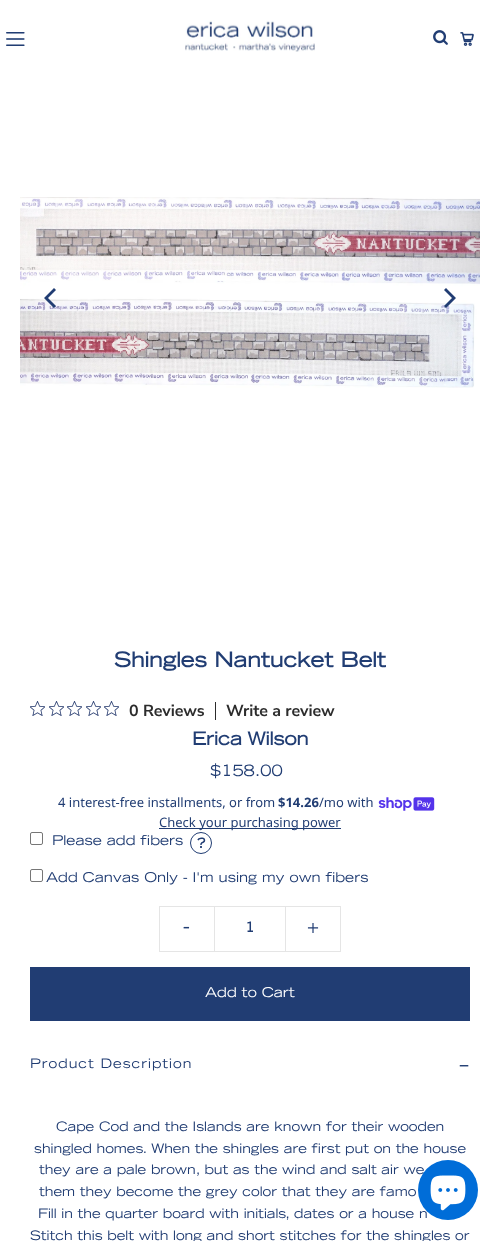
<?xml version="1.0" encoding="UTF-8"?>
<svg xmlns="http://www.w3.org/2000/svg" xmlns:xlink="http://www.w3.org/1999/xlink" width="500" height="1241">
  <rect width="100%" height="100%" fill="#ffffff" />
  <image x="6" y="32" width="19" height="14" xlink:href="image1.png" />
  <image x="185" y="20" width="130" height="32" xlink:href="image2.png" />
  <image x="433" y="30" width="15" height="15" xlink:href="image3.png" />
  <image x="460" y="32" width="14" height="14" xlink:href="image4.png" />
  <image x="20" y="197" width="460" height="191" xlink:href="image5.png" />
  <path d="M 44 298 l 10 10 l 2 -2 l -8 -8 l 8 -8 l -2 -2 z" fill="#213d73" />
  <path d="M 456 298 l -10 -10 l -2 2 l 8 8 l -8 8 l 2 2 z" fill="#213d73" />
  <image x="30" y="701" width="15" height="15" xlink:href="image6.png" />
  <image x="49" y="701" width="15" height="15" xlink:href="image6.png" />
  <image x="67" y="701" width="15" height="15" xlink:href="image6.png" />
  <image x="86" y="701" width="15" height="15" xlink:href="image6.png" />
  <image x="104" y="701" width="15" height="15" xlink:href="image6.png" />
  <rect x="215" y="702" width="1" height="18" fill="#2c2c2c" />
  <image x="378" y="797" width="57" height="14" xlink:href="image7.png" />
  <rect x="159" y="828" width="182" height="1" fill="#213d73" />
  <rect x="30.5" y="832.5" width="12" height="12" rx="1.5" fill="none" stroke="#767676" />
  <circle cx="201" cy="843" r="10.5" fill="none" stroke="#213d73" />
  <rect x="30.5" y="869.5" width="12" height="12" rx="1.5" fill="none" stroke="#767676" />
  <rect x="159" y="906" width="55" height="1" fill="#e5e5e5" />
  <rect x="159" y="951" width="55" height="1" fill="#e5e5e5" />
  <rect x="159" y="906" width="1" height="46" fill="#e5e5e5" />
  <rect x="214.5" y="906.5" width="71" height="45" fill="none" stroke="#e5e5e5" />
  <rect x="286" y="906" width="55" height="1" fill="#e5e5e5" />
  <rect x="340" y="906" width="1" height="46" fill="#e5e5e5" />
  <rect x="286" y="951" width="55" height="1" fill="#e5e5e5" />
  <rect x="30" y="967" width="440" height="54" fill="#213d73" />
  <text x="114" y="667" style="font-family: Trade Gothic; font-size: 20.4px; font-weight: bold; fill: #213d73">Shingles Nantucket Belt</text>
  <text x="129" y="716" style="font-family: Nunito Sans; font-size: 16px; font-weight: bold; fill: #2c2c2c">0 Reviews</text>
  <text x="226" y="716" style="font-family: Nunito Sans; font-size: 16px; font-weight: bold; fill: #2c2c2c">Write a review</text>
  <text x="192" y="745" style="font-family: Trade Gothic; font-size: 18px; font-weight: bold; fill: #213d73">Erica Wilson</text>
  <text x="210" y="776" style="font-family: Trade Gothic; font-size: 15.5px; fill: #213d73">$158.00</text>
  <text x="58" y="807" style="font-family: Noto Sans; font-size: 13px; fill: #213d73">4 interest-free installments, or from</text>
  <text x="278" y="807" style="font-family: Noto Sans; font-size: 13px; font-weight: bold; fill: #213d73">$14.26</text>
  <text x="319" y="807" style="font-family: Noto Sans; font-size: 13px; fill: #213d73">/mo with</text>
  <text x="159" y="827" style="font-family: Noto Sans; font-size: 13px; fill: #213d73">Check your purchasing power</text>
  <text x="52" y="845" style="font-family: Trade Gothic; font-size: 13.6px; fill: #213d73">Please add fibers</text>
  <text x="197" y="848" style="font-family: Trade Gothic; font-size: 13.6px; font-weight: bold; fill: #213d73">?</text>
  <text x="46" y="882" style="font-family: Trade Gothic; font-size: 13.6px; fill: #213d73">Add Canvas Only - I'm using my own fibers</text>
  <text x="183" y="933" style="font-family: Trade Gothic; font-size: 20px; fill: #213d73">-</text>
  <text x="245" y="932" style="font-family: Trade Gothic; font-size: 13.6px; font-weight: bold; fill: #213d73">1</text>
  <text x="307" y="933" style="font-family: Trade Gothic; font-size: 20px; fill: #213d73">+</text>
  <text x="205" y="997" style="font-family: Trade Gothic; font-size: 13.6px; fill: #ffffff">Add to Cart</text>
  <text x="30" y="1068" style="font-family: Trade Gothic; font-size: 13px; letter-spacing: 1px; fill: #213d73">Product Description</text>
  <text x="459" y="1070" style="font-family: Trade Gothic; font-size: 16px; font-weight: bold; letter-spacing: 1px; fill: #213d73">−</text>
  <text x="56" y="1131" style="font-family: Trade Gothic; font-size: 13px; fill: #213d73">Cape Cod and the Islands are known for their wooden</text>
  <text x="34" y="1153" style="font-family: Trade Gothic; font-size: 13px; fill: #213d73">shingled homes. When the shingles are first put on the house</text>
  <text x="39" y="1174" style="font-family: Trade Gothic; font-size: 13px; fill: #213d73">they are a pale brown, but as the wind and salt air we</text>
  <text x="39" y="1196" style="font-family: Trade Gothic; font-size: 13px; fill: #213d73">them they become the grey color that they are famo</text>
  <text x="38" y="1218" style="font-family: Trade Gothic; font-size: 13px; fill: #213d73">Fill in the quarter board with initials, dates or a house n</text>
  <text x="30" y="1240" style="font-family: Trade Gothic; font-size: 13px; fill: #213d73">Stitch this belt with long and short stitches for the shingles or</text>
  <circle cx="448" cy="1190" r="30" fill="#006dd8" />
  <image x="430" y="1175" width="36" height="36" xlink:href="image8.png" />
</svg>
